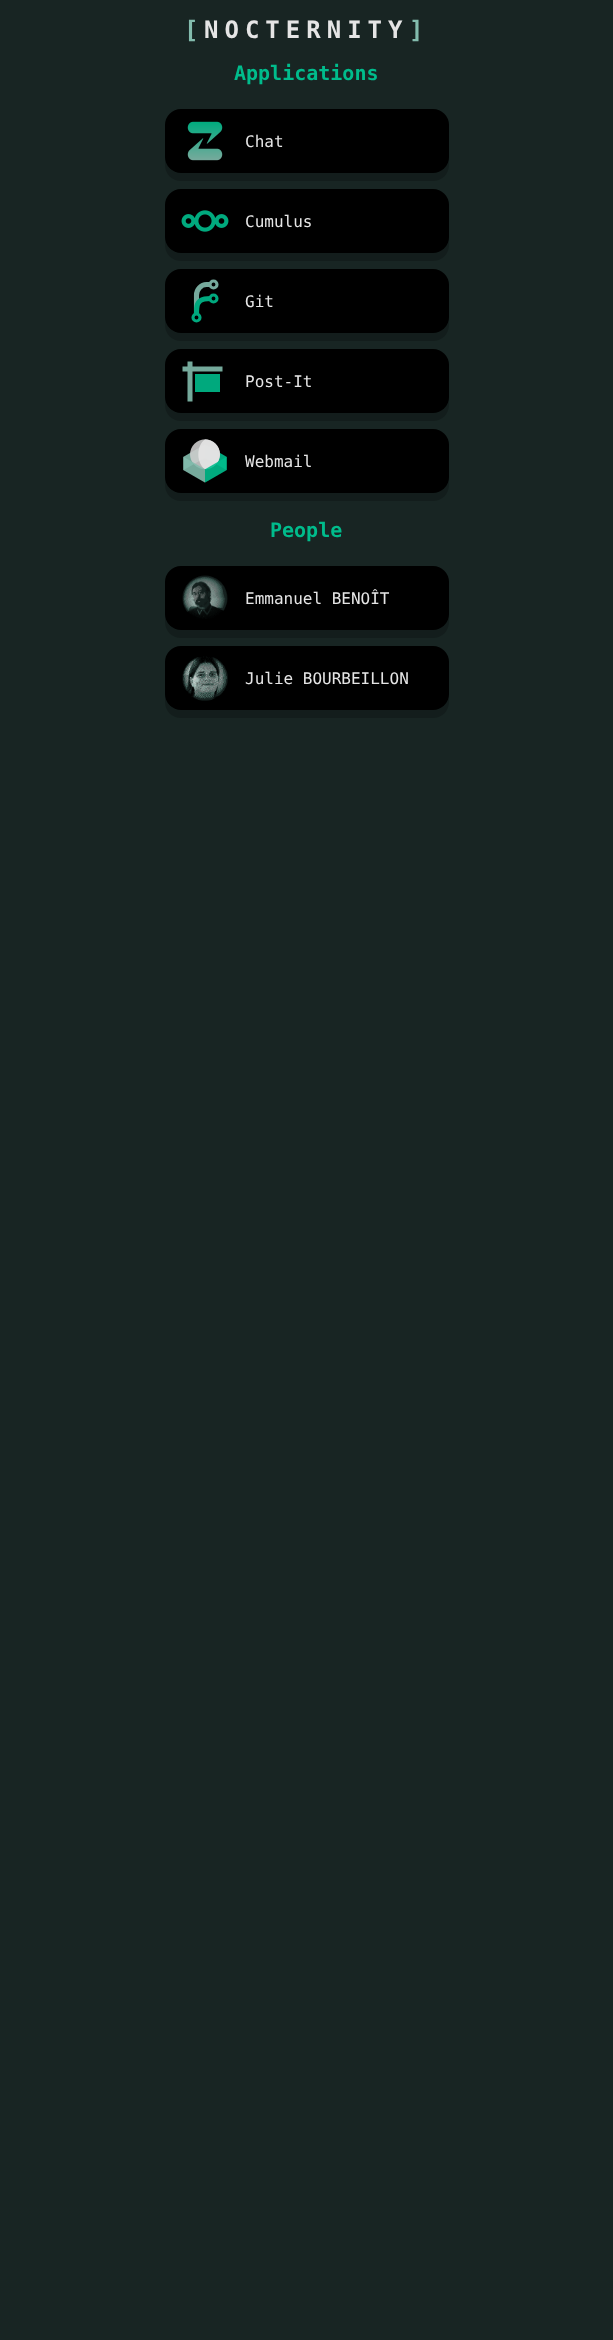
<?xml version="1.0" encoding="UTF-8"?>
<svg xmlns="http://www.w3.org/2000/svg" xmlns:xlink="http://www.w3.org/1999/xlink" width="613" height="2340">
  <rect width="100%" height="100%" fill="#182523" />
  <path d="M 165 157 v 8 c 0 9 7 16 16 16 h 252 c 9 0 16 -7 16 -16 v -8 c 0 9 -7 16 -16 16 h -252 c -9 0 -16 -7 -16 -16 z" fill="#000000" fill-opacity="0.2" />
  <rect x="165" y="109" width="284" height="64" rx="16" fill="#000000" />
  <image x="187" y="121" width="36" height="40" xlink:href="image1.png" />
  <path d="M 165 237 v 8 c 0 9 7 16 16 16 h 252 c 9 0 16 -7 16 -16 v -8 c 0 9 -7 16 -16 16 h -252 c -9 0 -16 -7 -16 -16 z" fill="#000000" fill-opacity="0.2" />
  <rect x="165" y="189" width="284" height="64" rx="16" fill="#000000" />
  <image x="181" y="210" width="48" height="22" xlink:href="image2.png" />
  <path d="M 165 317 v 8 c 0 9 7 16 16 16 h 252 c 9 0 16 -7 16 -16 v -8 c 0 9 -7 16 -16 16 h -252 c -9 0 -16 -7 -16 -16 z" fill="#000000" fill-opacity="0.2" />
  <rect x="165" y="269" width="284" height="64" rx="16" fill="#000000" />
  <path d="M 196.5 315 v -20 c 0 -5.5 4.5 -10.5 10 -10.5 h 4" fill="none" stroke="#76a99c" stroke-width="5.1" />
  <circle cx="213.5" cy="284.5" r="3.5" fill="none" stroke="#76a99c" stroke-width="3.1" />
  <path d="M 196.5 315 c 0 -7 -0.5 -14.5 8 -16 l 6 -0.5" fill="none" stroke="#00a97e" stroke-width="5.1" />
  <circle cx="213.5" cy="298.5" r="3.5" fill="none" stroke="#00a97e" stroke-width="3.1" />
  <circle cx="196.5" cy="317.5" r="3.5" fill="none" stroke="#00a97e" stroke-width="3.1" />
  <path d="M 165 397 v 8 c 0 9 7 16 16 16 h 252 c 9 0 16 -7 16 -16 v -8 c 0 9 -7 16 -16 16 h -252 c -9 0 -16 -7 -16 -16 z" fill="#000000" fill-opacity="0.2" />
  <rect x="165" y="349" width="284" height="64" rx="16" fill="#000000" />
  <path d="M 182.5 371.5 v -5 h 5 v -5 h 5 v 5 h 30 v 5 h -30 v 30 h -5 v -30 z" fill="#75a99b" />
  <rect x="195" y="374" width="25" height="18" fill="#00a97d" />
  <path d="M 165 477 v 8 c 0 9 7 16 16 16 h 252 c 9 0 16 -7 16 -16 v -8 c 0 9 -7 16 -16 16 h -252 c -9 0 -16 -7 -16 -16 z" fill="#000000" fill-opacity="0.2" />
  <rect x="165" y="429" width="284" height="64" rx="16" fill="#000000" />
  <image x="183" y="439" width="44" height="44" xlink:href="image3.png" />
  <path d="M 165 614 v 8 c 0 9 7 16 16 16 h 252 c 9 0 16 -7 16 -16 v -8 c 0 9 -7 16 -16 16 h -252 c -9 0 -16 -7 -16 -16 z" fill="#000000" fill-opacity="0.2" />
  <rect x="165" y="566" width="284" height="64" rx="16" fill="#000000" />
  <image x="182" y="575" width="46" height="44" xlink:href="image4.png" />
  <path d="M 165 694 v 8 c 0 9 7 16 16 16 h 252 c 9 0 16 -7 16 -16 v -8 c 0 9 -7 16 -16 16 h -252 c -9 0 -16 -7 -16 -16 z" fill="#000000" fill-opacity="0.2" />
  <rect x="165" y="646" width="284" height="64" rx="16" fill="#000000" />
  <image x="182" y="656" width="46" height="45" xlink:href="image5.png" />
  <text x="184" y="38" style="font-family: DejaVu Sans Mono; font-size: 24px; font-weight: bold; letter-spacing: 6px; fill: #83bcad">[</text>
  <text x="204" y="38" style="font-family: DejaVu Sans Mono; font-size: 24px; font-weight: bold; letter-spacing: 6px; fill: #e5e5e5">NOCTERNITY</text>
  <text x="409" y="38" style="font-family: DejaVu Sans Mono; font-size: 24px; font-weight: bold; letter-spacing: 6px; fill: #83bcad">]</text>
  <text x="234" y="80" style="font-family: DejaVu Sans Mono; font-size: 20px; font-weight: bold; fill: #00bc8c">Applications</text>
  <text x="245" y="147" style="font-family: DejaVu Sans Mono; font-size: 16px; fill: #e5e5e5">Chat</text>
  <text x="245" y="227" style="font-family: DejaVu Sans Mono; font-size: 16px; fill: #e5e5e5">Cumulus</text>
  <text x="245" y="307" style="font-family: DejaVu Sans Mono; font-size: 16px; fill: #e5e5e5">Git</text>
  <text x="245" y="387" style="font-family: DejaVu Sans Mono; font-size: 16px; fill: #e5e5e5">Post-It</text>
  <text x="245" y="467" style="font-family: DejaVu Sans Mono; font-size: 16px; fill: #e5e5e5">Webmail</text>
  <text x="270" y="537" style="font-family: DejaVu Sans Mono; font-size: 20px; font-weight: bold; fill: #00bc8c">People</text>
  <text x="245" y="604" style="font-family: DejaVu Sans Mono; font-size: 16px; fill: #e5e5e5">Emmanuel BENOÎT</text>
  <text x="245" y="684" style="font-family: DejaVu Sans Mono; font-size: 16px; fill: #e5e5e5">Julie BOURBEILLON</text>
</svg>
